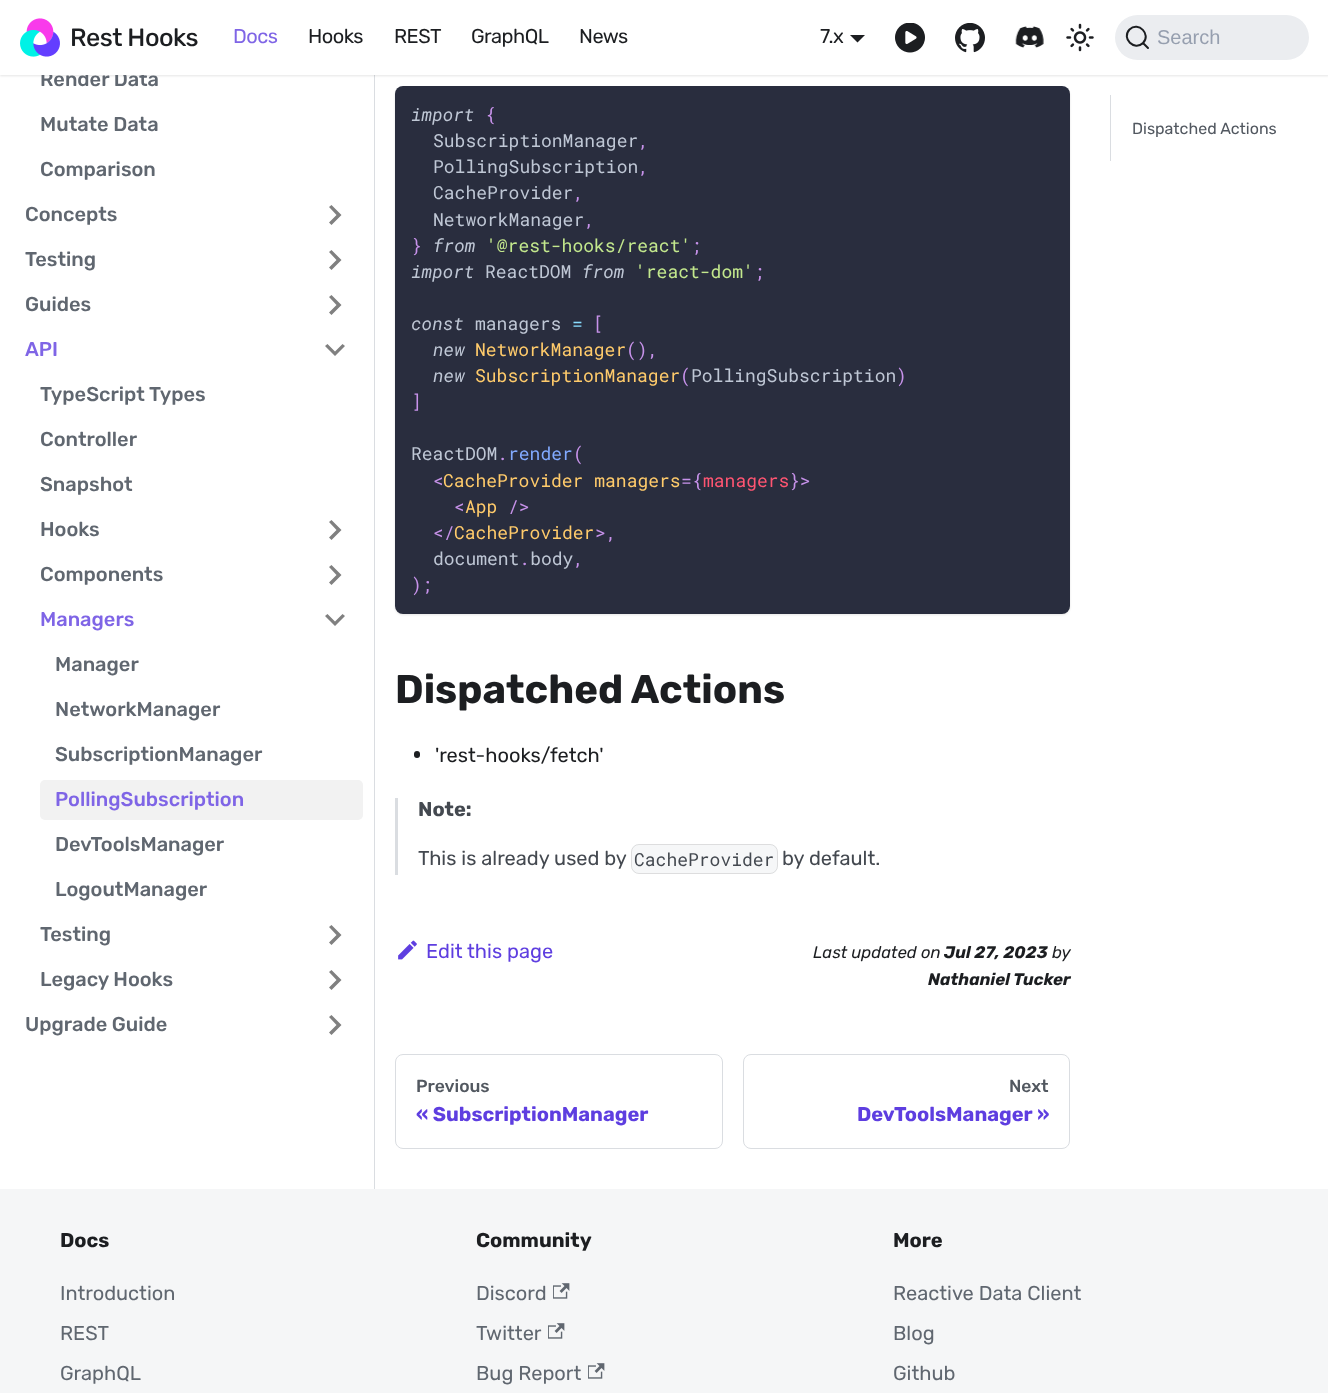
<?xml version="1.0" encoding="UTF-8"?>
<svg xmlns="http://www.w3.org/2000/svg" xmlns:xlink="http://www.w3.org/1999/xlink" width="1328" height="1393">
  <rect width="100%" height="100%" fill="#ffffff" />
  <rect x="374" y="75" width="1" height="1114" fill="#dadde1" />
  <rect y="1" width="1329" height="75" fill="#000000" fill-opacity="0.1" filter="blur(1px)" />
  <path d="M 329 207 l 7.5 8 l -7.5 7.5 l 2.5 2.5 l 10 -10 l -10 -10 z" fill="#808080" />
  <path d="M 329 252 l 7.5 8 l -7.5 7.5 l 2.5 2.5 l 10 -10 l -10 -10 z" fill="#808080" />
  <path d="M 329 297 l 7.5 8 l -7.5 7.5 l 2.5 2.5 l 10 -10 l -10 -10 z" fill="#808080" />
  <path d="M 342.5 344 l -7.5 7.5 l -7.5 -7.5 l -2.5 2 l 10 10 l 10 -10 z" fill="#808080" />
  <path d="M 329 522 l 7.5 8 l -7.5 7.5 l 2.5 2.5 l 10 -10 l -10 -10 z" fill="#808080" />
  <path d="M 329 567 l 7.5 8 l -7.5 7.5 l 2.5 2.5 l 10 -10 l -10 -10 z" fill="#808080" />
  <path d="M 342.5 614 l -7.5 7.5 l -7.5 -7.5 l -2.5 2 l 10 10 l 10 -10 z" fill="#808080" />
  <rect x="40" y="780" width="323" height="40" rx="5" fill="#f2f2f2" />
  <path d="M 329 927 l 7.5 8 l -7.5 7.5 l 2.5 2.5 l 10 -10 l -10 -10 z" fill="#808080" />
  <path d="M 329 972 l 7.5 8 l -7.5 7.5 l 2.5 2.5 l 10 -10 l -10 -10 z" fill="#808080" />
  <path d="M 329 1017 l 7.5 8 l -7.5 7.5 l 2.5 2.5 l 10 -10 l -10 -10 z" fill="#808080" />
  <rect x="395" y="88" width="675" height="527" rx="8" fill="#000000" fill-opacity="0.1" filter="blur(1px)" />
  <rect x="395" y="86" width="675" height="528" rx="8" fill="#292d3e" />
  <rect x="414" y="751" width="6" height="7" rx="3" fill="#1c1e21" />
  <rect x="395" y="798" width="3" height="77" fill="#dadde1" />
  <rect x="631" y="844" width="147" height="30" rx="8" fill="#f6f7f8" />
  <rect x="631.5" y="844.5" width="146" height="29" rx="7.5" fill="none" stroke="#000000" stroke-opacity="0.1" />
  <image x="398" y="940" width="19" height="20" xlink:href="image6.png" />
  <rect x="395.5" y="1054.5" width="327" height="94" rx="7.5" fill="none" stroke="#dadde1" />
  <rect x="743.5" y="1054.5" width="326" height="94" rx="7.5" fill="none" stroke="#dadde1" />
  <rect x="1110" y="95" width="1" height="66" fill="#dadde1" />
  <rect y="1189" width="1328" height="204" fill="#f5f6f7" />
  <image x="553" y="1283" width="17" height="16" xlink:href="image7.png" />
  <image x="548" y="1323" width="17" height="16" xlink:href="image7.png" />
  <image x="588" y="1363" width="17" height="16" xlink:href="image7.png" />
  <text x="40" y="86" style="font-family: Rubik; font-size: 20px; font-weight: 500; fill: #606770">Render Data</text>
  <rect width="1328" height="75" fill="#ffffff" />
  <image x="1015" y="26" width="29" height="22" xlink:href="image4.png" />
  <image x="955" y="23" width="30" height="30" xlink:href="image3.png" />
  <image x="895" y="23" width="30" height="30" xlink:href="image2.png" />
  <path d="M 850 35 h 15 l -7.5 7.5 z" fill="#1c1e21" />
  <text x="820" y="43" style="font-family: Rubik; font-size: 20px; letter-spacing: -0.5px; fill: #1c1e21">7.x</text>
  <rect x="1115" y="15" width="194" height="45" rx="22.5" fill="#ebedf0" />
  <path d="M 1143 43 l 5 5 l -5 -5 c -8.5 8.5 -22 -4.5 -13.5 -13.5 c 9 -8.5 22 5 13.5 13.5 z" fill="none" stroke="#1c1e21" stroke-width="2" stroke-linecap="round" stroke-linejoin="round" />
  <image x="1066" y="23" width="28" height="29" xlink:href="image5.png" />
  <text x="70" y="46" style="font-family: 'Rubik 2'; font-size: 25px; letter-spacing: -0.5px; fill: #1c1e21">Rest Hooks</text>
  <text x="1157" y="44" style="font-family: Liberation Sans; font-size: 20px; fill: #969faf">Search</text>
  <text x="579" y="43" style="font-family: Rubik; font-size: 20px; letter-spacing: -0.5px; fill: #1c1e21">News</text>
  <text x="471" y="43" style="font-family: Rubik; font-size: 20px; letter-spacing: -0.5px; fill: #1c1e21">GraphQL</text>
  <text x="394" y="43" style="font-family: Rubik; font-size: 20px; letter-spacing: -0.5px; fill: #1c1e21">REST</text>
  <text x="308" y="43" style="font-family: Rubik; font-size: 20px; letter-spacing: -0.5px; fill: #1c1e21">Hooks</text>
  <text x="233" y="43" style="font-family: Rubik; font-size: 20px; letter-spacing: -0.5px; fill: #7f65e6">Docs</text>
  <image x="20" y="18" width="40" height="39" xlink:href="image1.png" />
  <text x="40" y="131" style="font-family: Rubik; font-size: 20px; font-weight: 500; fill: #606770">Mutate Data</text>
  <text x="40" y="176" style="font-family: Rubik; font-size: 20px; font-weight: 500; fill: #606770">Comparison</text>
  <text x="25" y="221" style="font-family: Rubik; font-size: 20px; font-weight: 500; fill: #606770">Concepts</text>
  <text x="25" y="266" style="font-family: Rubik; font-size: 20px; font-weight: 500; fill: #606770">Testing</text>
  <text x="25" y="311" style="font-family: Rubik; font-size: 20px; font-weight: 500; fill: #606770">Guides</text>
  <text x="25" y="356" style="font-family: Rubik; font-size: 20px; font-weight: 500; fill: #7f65e6">API</text>
  <text x="40" y="401" style="font-family: Rubik; font-size: 20px; font-weight: 500; fill: #606770">TypeScript Types</text>
  <text x="40" y="446" style="font-family: Rubik; font-size: 20px; font-weight: 500; fill: #606770">Controller</text>
  <text x="40" y="491" style="font-family: Rubik; font-size: 20px; font-weight: 500; fill: #606770">Snapshot</text>
  <text x="40" y="536" style="font-family: Rubik; font-size: 20px; font-weight: 500; fill: #606770">Hooks</text>
  <text x="40" y="581" style="font-family: Rubik; font-size: 20px; font-weight: 500; fill: #606770">Components</text>
  <text x="40" y="626" style="font-family: Rubik; font-size: 20px; font-weight: 500; fill: #7f65e6">Managers</text>
  <text x="55" y="671" style="font-family: Rubik; font-size: 20px; font-weight: 500; fill: #606770">Manager</text>
  <text x="55" y="716" style="font-family: Rubik; font-size: 20px; font-weight: 500; fill: #606770">NetworkManager</text>
  <text x="55" y="761" style="font-family: Rubik; font-size: 20px; font-weight: 500; fill: #606770">SubscriptionManager</text>
  <text x="55" y="806" style="font-family: Rubik; font-size: 20px; font-weight: 500; fill: #7f65e6">PollingSubscription</text>
  <text x="55" y="851" style="font-family: Rubik; font-size: 20px; font-weight: 500; fill: #606770">DevToolsManager</text>
  <text x="55" y="896" style="font-family: Rubik; font-size: 20px; font-weight: 500; fill: #606770">LogoutManager</text>
  <text x="40" y="941" style="font-family: Rubik; font-size: 20px; font-weight: 500; fill: #606770">Testing</text>
  <text x="40" y="986" style="font-family: Rubik; font-size: 20px; font-weight: 500; fill: #606770">Legacy Hooks</text>
  <text x="25" y="1031" style="font-family: Rubik; font-size: 20px; font-weight: 500; fill: #606770">Upgrade Guide</text>
  <text x="411" y="121" style="font-family: Roboto Mono; font-size: 18px; font-style: italic; fill: #bfc7d5">import</text>
  <text x="485" y="121" style="font-family: Roboto Mono; font-size: 18px; fill: #c792ea">{</text>
  <text x="433" y="147" style="font-family: Roboto Mono; font-size: 18px; fill: #bfc7d5">SubscriptionManager</text>
  <text x="638" y="147" style="font-family: Roboto Mono; font-size: 18px; fill: #c792ea">,</text>
  <text x="433" y="173" style="font-family: Roboto Mono; font-size: 18px; fill: #bfc7d5">PollingSubscription</text>
  <text x="638" y="173" style="font-family: Roboto Mono; font-size: 18px; fill: #c792ea">,</text>
  <text x="433" y="199" style="font-family: Roboto Mono; font-size: 18px; fill: #bfc7d5">CacheProvider</text>
  <text x="573" y="199" style="font-family: Roboto Mono; font-size: 18px; fill: #c792ea">,</text>
  <text x="433" y="226" style="font-family: Roboto Mono; font-size: 18px; fill: #bfc7d5">NetworkManager</text>
  <text x="584" y="226" style="font-family: Roboto Mono; font-size: 18px; fill: #c792ea">,</text>
  <text x="411" y="252" style="font-family: Roboto Mono; font-size: 18px; fill: #c792ea">}</text>
  <text x="433" y="252" style="font-family: Roboto Mono; font-size: 18px; font-style: italic; fill: #bfc7d5">from</text>
  <text x="486" y="252" style="font-family: Roboto Mono; font-size: 18px; fill: #c3e88d">'@rest-hooks/react'</text>
  <text x="691" y="252" style="font-family: Roboto Mono; font-size: 18px; fill: #c792ea">;</text>
  <text x="411" y="278" style="font-family: Roboto Mono; font-size: 18px; font-style: italic; fill: #bfc7d5">import</text>
  <text x="485" y="278" style="font-family: Roboto Mono; font-size: 18px; fill: #bfc7d5">ReactDOM</text>
  <text x="582" y="278" style="font-family: Roboto Mono; font-size: 18px; font-style: italic; fill: #bfc7d5">from</text>
  <text x="635" y="278" style="font-family: Roboto Mono; font-size: 18px; fill: #c3e88d">'react-dom'</text>
  <text x="754" y="278" style="font-family: Roboto Mono; font-size: 18px; fill: #c792ea">;</text>
  <text x="411" y="330" style="font-family: Roboto Mono; font-size: 18px; font-style: italic; fill: #bfc7d5">const</text>
  <text x="475" y="330" style="font-family: Roboto Mono; font-size: 18px; fill: #bfc7d5">managers</text>
  <text x="572" y="330" style="font-family: Roboto Mono; font-size: 18px; fill: #89ddff">=</text>
  <text x="593" y="330" style="font-family: Roboto Mono; font-size: 18px; fill: #c792ea">[</text>
  <text x="433" y="356" style="font-family: Roboto Mono; font-size: 18px; font-style: italic; fill: #bfc7d5">new</text>
  <text x="475" y="356" style="font-family: Roboto Mono; font-size: 18px; fill: #ffcb6b">NetworkManager</text>
  <text x="626" y="356" style="font-family: Roboto Mono; font-size: 18px; fill: #c792ea">(),</text>
  <text x="433" y="382" style="font-family: Roboto Mono; font-size: 18px; font-style: italic; fill: #bfc7d5">new</text>
  <text x="475" y="382" style="font-family: Roboto Mono; font-size: 18px; fill: #ffcb6b">SubscriptionManager</text>
  <text x="680" y="382" style="font-family: Roboto Mono; font-size: 18px; fill: #c792ea">(</text>
  <text x="691" y="382" style="font-family: Roboto Mono; font-size: 18px; fill: #bfc7d5">PollingSubscription</text>
  <text x="896" y="382" style="font-family: Roboto Mono; font-size: 18px; fill: #c792ea">)</text>
  <text x="411" y="408" style="font-family: Roboto Mono; font-size: 18px; fill: #c792ea">]</text>
  <text x="411" y="460" style="font-family: Roboto Mono; font-size: 18px; fill: #bfc7d5">ReactDOM</text>
  <text x="497" y="460" style="font-family: Roboto Mono; font-size: 18px; fill: #c792ea">.</text>
  <text x="508" y="460" style="font-family: Roboto Mono; font-size: 18px; fill: #82aaff">render</text>
  <text x="573" y="460" style="font-family: Roboto Mono; font-size: 18px; fill: #c792ea">(</text>
  <text x="433" y="487" style="font-family: Roboto Mono; font-size: 18px; fill: #c792ea">&lt;</text>
  <text x="443" y="487" style="font-family: Roboto Mono; font-size: 18px; fill: #ffcb6b">CacheProvider managers</text>
  <text x="681" y="487" style="font-family: Roboto Mono; font-size: 18px; fill: #c792ea">={</text>
  <text x="703" y="487" style="font-family: Roboto Mono; font-size: 18px; fill: #ff5572">managers</text>
  <text x="789" y="487" style="font-family: Roboto Mono; font-size: 18px; fill: #c792ea">}&gt;</text>
  <text x="454" y="513" style="font-family: Roboto Mono; font-size: 18px; fill: #c792ea">&lt;</text>
  <text x="465" y="513" style="font-family: Roboto Mono; font-size: 18px; fill: #ffcb6b">App</text>
  <text x="508" y="513" style="font-family: Roboto Mono; font-size: 18px; fill: #c792ea">/&gt;</text>
  <text x="433" y="539" style="font-family: Roboto Mono; font-size: 18px; fill: #c792ea">&lt;/</text>
  <text x="454" y="539" style="font-family: Roboto Mono; font-size: 18px; fill: #ffcb6b">CacheProvider</text>
  <text x="595" y="539" style="font-family: Roboto Mono; font-size: 18px; fill: #c792ea">&gt;,</text>
  <text x="433" y="565" style="font-family: Roboto Mono; font-size: 18px; fill: #bfc7d5">document body</text>
  <text x="519" y="565" style="font-family: Roboto Mono; font-size: 18px; fill: #c792ea">.</text>
  <text x="573" y="565" style="font-family: Roboto Mono; font-size: 18px; fill: #c792ea">,</text>
  <text x="411" y="591" style="font-family: Roboto Mono; font-size: 18px; fill: #c792ea">);</text>
  <text x="395" y="703" style="font-family: Rubik; font-size: 40px; font-weight: bold; fill: #1c1e21">Dispatched Actions</text>
  <text x="435" y="762" style="font-family: Rubik; font-size: 20px; fill: #1c1e21">'rest-hooks/fetch'</text>
  <text x="418" y="816" style="font-family: Rubik; font-size: 20px; font-weight: bold; fill: #444950">Note:</text>
  <text x="418" y="865" style="font-family: Rubik; font-size: 20px; fill: #444950">This is already used by</text>
  <text x="634" y="866" style="font-family: Roboto Mono; font-size: 18px; fill: #444950">CacheProvider</text>
  <text x="782" y="865" style="font-family: Rubik; font-size: 20px; fill: #444950">by default.</text>
  <text x="426" y="958" style="font-family: Rubik; font-size: 20px; fill: #5e3ee0">Edit this page</text>
  <text x="813" y="958" style="font-family: Rubik; font-size: 16.75px; font-style: italic; fill: #1c1e21">Last updated on</text>
  <text x="944" y="958" style="font-family: Rubik; font-size: 16.75px; font-weight: bold; font-style: italic; fill: #1c1e21">Jul 27, 2023</text>
  <text x="1052" y="958" style="font-family: Rubik; font-size: 16.75px; font-style: italic; fill: #1c1e21">by</text>
  <text x="928" y="985" style="font-family: Rubik; font-size: 16.75px; font-weight: bold; font-style: italic; fill: #1c1e21">Nathaniel Tucker</text>
  <text x="416" y="1092" style="font-family: Rubik; font-size: 17.5px; font-weight: 500; fill: #525860">Previous</text>
  <text x="416" y="1121" style="font-family: Rubik; font-size: 20px; font-weight: bold; fill: #5e3ee0">« SubscriptionManager</text>
  <text x="1009" y="1092" style="font-family: Rubik; font-size: 17.5px; font-weight: 500; fill: #525860">Next</text>
  <text x="857" y="1121" style="font-family: Rubik; font-size: 20px; font-weight: bold; fill: #5e3ee0">DevToolsManager</text>
  <text x="1037" y="1121" style="font-family: Rubik; font-size: 20px; font-weight: bold; fill: #5e3ee0">»</text>
  <text x="1132" y="134" style="font-family: Rubik; font-size: 16px; fill: #525860">Dispatched Actions</text>
  <text x="60" y="1247" style="font-family: Rubik; font-size: 20px; font-weight: bold; fill: #1c1e21">Docs</text>
  <text x="60" y="1300" style="font-family: Rubik; font-size: 20px; fill: #606770">Introduction</text>
  <text x="60" y="1340" style="font-family: Rubik; font-size: 20px; fill: #606770">REST</text>
  <text x="60" y="1380" style="font-family: Rubik; font-size: 20px; fill: #606770">GraphQL</text>
  <text x="476" y="1247" style="font-family: Rubik; font-size: 20px; font-weight: bold; fill: #1c1e21">Community</text>
  <text x="476" y="1300" style="font-family: Rubik; font-size: 20px; fill: #606770">Discord</text>
  <text x="476" y="1340" style="font-family: Rubik; font-size: 20px; fill: #606770">Twitter</text>
  <text x="476" y="1380" style="font-family: Rubik; font-size: 20px; fill: #606770">Bug Report</text>
  <text x="893" y="1247" style="font-family: Rubik; font-size: 20px; font-weight: bold; fill: #1c1e21">More</text>
  <text x="893" y="1300" style="font-family: Rubik; font-size: 20px; fill: #606770">Reactive Data Client</text>
  <text x="893" y="1340" style="font-family: Rubik; font-size: 20px; fill: #606770">Blog</text>
  <text x="893" y="1380" style="font-family: Rubik; font-size: 20px; fill: #606770">Github</text>
</svg>
